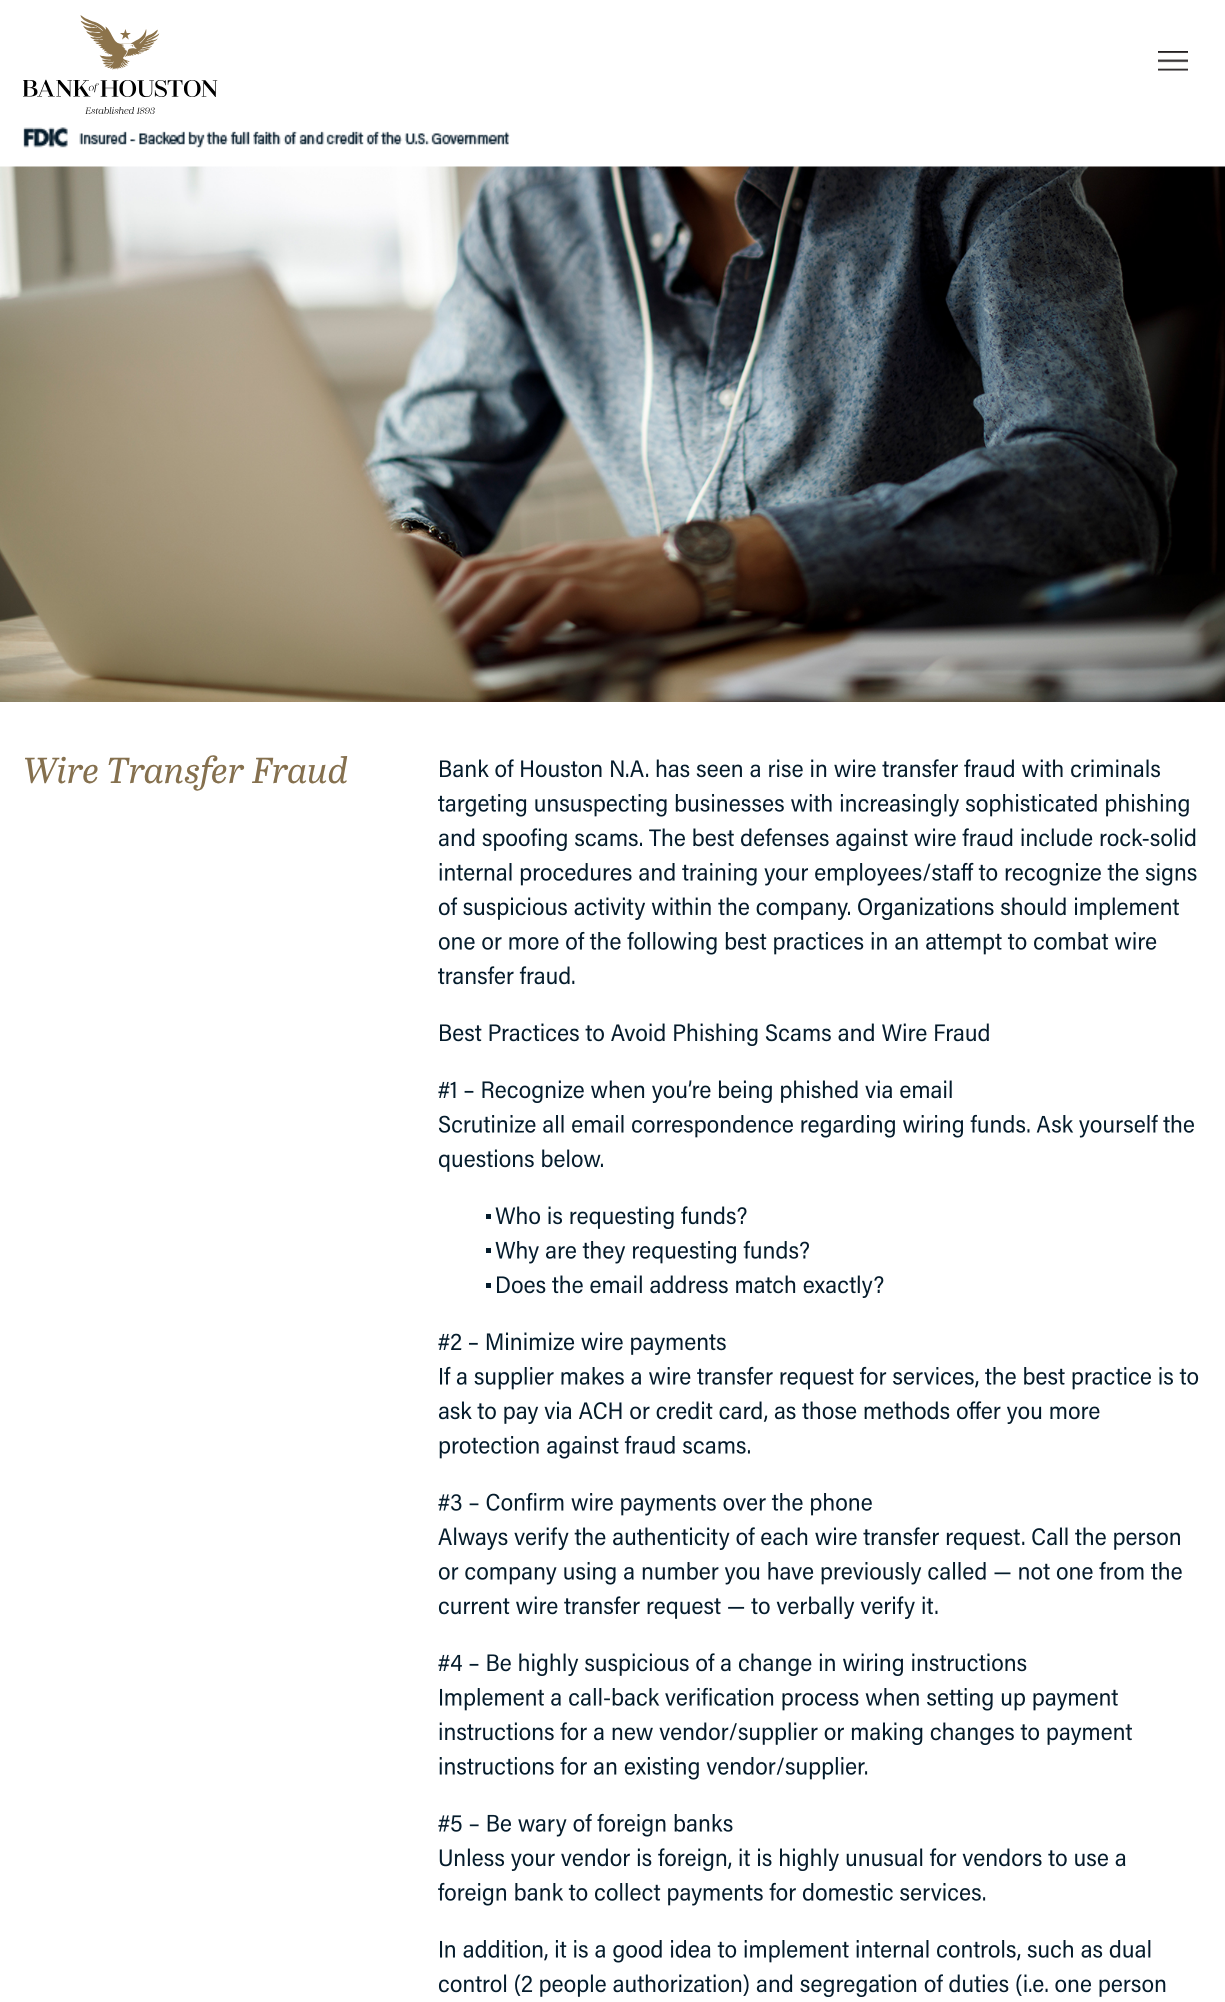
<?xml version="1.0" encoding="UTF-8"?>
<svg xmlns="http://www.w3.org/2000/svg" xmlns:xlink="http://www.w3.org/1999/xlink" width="1225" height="2002">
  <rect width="100%" height="100%" fill="#ffffff" />
  <image x="23" y="15" width="195" height="99" xlink:href="image1.png" />
  <image x="1158" y="51" width="30" height="20" xlink:href="image2.png" />
  <image x="23" y="127" width="487" height="21" xlink:href="image3.png" />
  <image x="0" y="166" width="1225" height="536" xlink:href="image4.png" />
  <image x="440" y="759" width="720" height="19" xlink:href="image5.png" />
  <image x="438" y="794" width="751" height="23" xlink:href="image6.png" />
  <image x="438" y="828" width="758" height="23" xlink:href="image7.png" />
  <image x="439" y="862" width="758" height="24" xlink:href="image8.png" />
  <image x="438" y="897" width="741" height="23" xlink:href="image9.png" />
  <image x="438" y="931" width="719" height="24" xlink:href="image10.png" />
  <image x="438" y="966" width="137" height="19" xlink:href="image11.png" />
  <image x="440" y="1023" width="549" height="23" xlink:href="image12.png" />
  <image x="438" y="1080" width="514" height="23" xlink:href="image13.png" />
  <image x="438" y="1114" width="756" height="24" xlink:href="image14.png" />
  <image x="438" y="1149" width="165" height="23" xlink:href="image15.png" />
  <rect x="486" y="1214" width="5" height="5" fill="#051c2c" />
  <image x="495" y="1206" width="252" height="23" xlink:href="image16.png" />
  <rect x="486" y="1248" width="5" height="5" fill="#051c2c" />
  <image x="495" y="1240" width="314" height="24" xlink:href="image17.png" />
  <rect x="486" y="1283" width="5" height="5" fill="#051c2c" />
  <image x="497" y="1275" width="387" height="23" xlink:href="image18.png" />
  <image x="438" y="1332" width="288" height="23" xlink:href="image19.png" />
  <image x="440" y="1366" width="759" height="24" xlink:href="image20.png" />
  <image x="438" y="1401" width="662" height="23" xlink:href="image21.png" />
  <image x="439" y="1435" width="311" height="24" xlink:href="image22.png" />
  <image x="438" y="1492" width="434" height="24" xlink:href="image23.png" />
  <image x="438" y="1527" width="742" height="23" xlink:href="image24.png" />
  <image x="438" y="1561" width="744" height="24" xlink:href="image25.png" />
  <image x="438" y="1596" width="500" height="23" xlink:href="image26.png" />
  <image x="438" y="1653" width="589" height="23" xlink:href="image27.png" />
  <image x="440" y="1687" width="678" height="24" xlink:href="image28.png" />
  <image x="439" y="1722" width="693" height="23" xlink:href="image29.png" />
  <image x="439" y="1756" width="429" height="24" xlink:href="image30.png" />
  <image x="438" y="1813" width="295" height="24" xlink:href="image31.png" />
  <image x="439" y="1848" width="687" height="23" xlink:href="image32.png" />
  <image x="438" y="1882" width="548" height="24" xlink:href="image33.png" />
  <image x="440" y="1940" width="711" height="23" xlink:href="image34.png" />
  <image x="438" y="1974" width="728" height="23" xlink:href="image35.png" />
  <text x="23" y="783" style="font-family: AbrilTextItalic; font-size: 36px; font-style: italic; fill: #85704e">Wire Transfer Fraud</text>
</svg>
